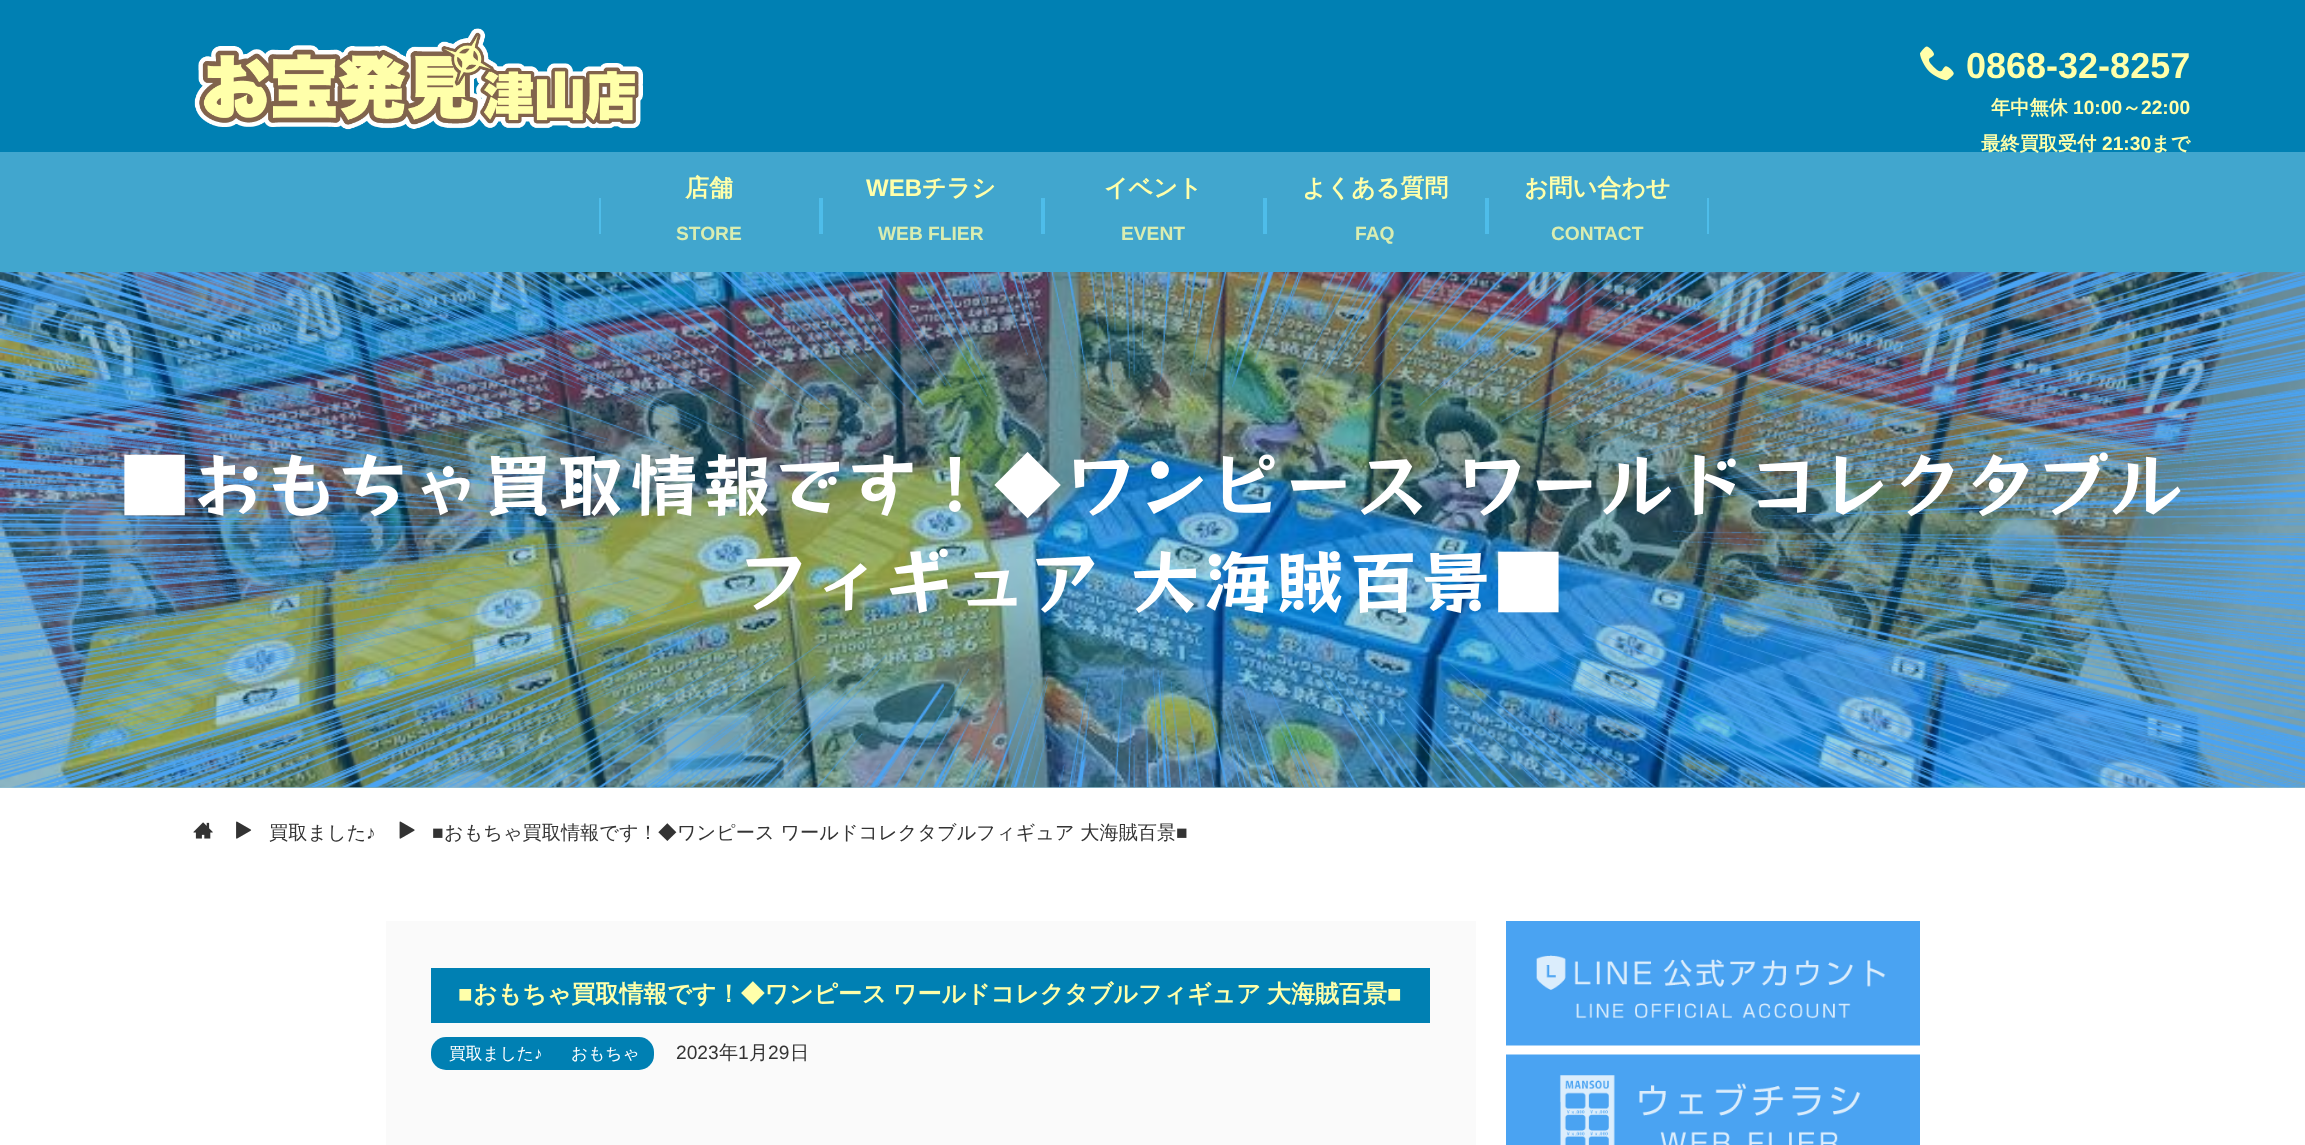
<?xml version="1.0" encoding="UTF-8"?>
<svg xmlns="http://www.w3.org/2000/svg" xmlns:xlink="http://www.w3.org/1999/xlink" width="2305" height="1145">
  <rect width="100%" height="100%" fill="#ffffff" />
  <rect width="2305" height="152" fill="#0080b3" />
  <image x="194" y="28" width="449" height="102" xlink:href="image1.png" />
  <image x="1920" y="46" width="34" height="35" xlink:href="image2.png" />
  <rect y="152" width="2305" height="120" fill="#41a6ce" />
  <rect x="599" y="198" width="2" height="36" fill="#4ebdea" />
  <rect x="819" y="198" width="4" height="36" fill="#4ebdea" />
  <rect x="1041" y="198" width="4" height="36" fill="#4ebdea" />
  <rect x="1263" y="198" width="4" height="36" fill="#4ebdea" />
  <rect x="1485" y="198" width="4" height="36" fill="#4ebdea" />
  <rect x="1707" y="198" width="2" height="36" fill="#4ebdea" />
  <rect y="787" width="2305" height="1" fill="#90bcce" />
  <image x="0" y="272" width="2305" height="516" xlink:href="image3.png" />
  <image x="0" y="272" width="2305" height="516" xlink:href="image4.png" />
  <image x="193" y="822" width="20" height="17" xlink:href="image5.png" />
  <image x="236" y="821" width="16" height="18" xlink:href="image6.png" />
  <image x="399" y="821" width="16" height="18" xlink:href="image7.png" />
  <rect x="386" y="921" width="1090" height="224" fill="#fafafa" />
  <rect x="431" y="968" width="999" height="55" fill="#0080b3" />
  <rect x="431" y="1037" width="223" height="33" rx="15" fill="#0080b3" />
  <image x="1506" y="921" width="414" height="125" xlink:href="image8.png" />
  <image x="1506" y="1054" width="414" height="91" xlink:href="image9.png" />
  <text x="1966" y="78" style="font-family: Liberation Sans; font-size: 36px; font-weight: bold; fill: #ffffaa">0868-32-8257</text>
  <text x="1991" y="114" style="font-family: WenQuanYi Zen Hei; font-size: 19.2px; font-weight: bold; fill: #ffffaa">年中無休</text>
  <text x="2073" y="114" style="font-family: Liberation Sans; font-size: 19.2px; font-weight: bold; fill: #ffffaa">10:00</text>
  <text x="2122" y="114" style="font-family: WenQuanYi Zen Hei; font-size: 19.2px; font-weight: bold; fill: #ffffaa">～</text>
  <text x="2141" y="114" style="font-family: Liberation Sans; font-size: 19.2px; font-weight: bold; fill: #ffffaa">22:00</text>
  <text x="1981" y="150" style="font-family: WenQuanYi Zen Hei; font-size: 19.2px; font-weight: bold; fill: #ffffaa">最終買取受付</text>
  <text x="2102" y="150" style="font-family: Liberation Sans; font-size: 19.2px; font-weight: bold; fill: #ffffaa">21:30</text>
  <text x="2151" y="150" style="font-family: WenQuanYi Zen Hei; font-size: 19.2px; font-weight: bold; fill: #ffffaa">まで</text>
  <text x="685" y="196" style="font-family: WenQuanYi Zen Hei; font-size: 24px; font-weight: bold; fill: #ffffaa">店舗</text>
  <text x="676" y="240" style="font-family: Liberation Sans; font-size: 19.2px; font-weight: bold; fill: #d9edb1">STORE</text>
  <text x="866" y="196" style="font-family: Liberation Sans; font-size: 24px; font-weight: bold; fill: #ffffaa">WEB</text>
  <text x="922" y="196" style="font-family: WenQuanYi Zen Hei; font-size: 24px; font-weight: bold; fill: #ffffaa">チラシ</text>
  <text x="878" y="240" style="font-family: Liberation Sans; font-size: 19.2px; font-weight: bold; fill: #d9edb1">WEB FLIER</text>
  <text x="1104" y="196" style="font-family: WenQuanYi Zen Hei; font-size: 24px; font-weight: bold; fill: #ffffaa">イベント</text>
  <text x="1121" y="240" style="font-family: Liberation Sans; font-size: 19.2px; font-weight: bold; fill: #d9edb1">EVENT</text>
  <text x="1302" y="196" style="font-family: WenQuanYi Zen Hei; font-size: 24px; font-weight: bold; fill: #ffffaa">よくある質問</text>
  <text x="1355" y="240" style="font-family: Liberation Sans; font-size: 19.2px; font-weight: bold; fill: #d9edb1">FAQ</text>
  <text x="1524" y="196" style="font-family: WenQuanYi Zen Hei; font-size: 24px; font-weight: bold; fill: #ffffaa">お問い合わせ</text>
  <text x="1551" y="240" style="font-family: Liberation Sans; font-size: 19.2px; font-weight: bold; fill: #d9edb1">CONTACT</text>
  <text x="120" y="511" style="font-family: RocknRoll One; font-size: 69.15px; letter-spacing: 3.6px; fill: #ffffff">■おもちゃ買取情報です！◆ワンピース ワールドコレクタブル</text>
  <text x="739" y="608" style="font-family: RocknRoll One; font-size: 69.15px; letter-spacing: 3.6px; fill: #ffffff">フィギュア 大海賊百景■</text>
  <text x="269" y="839" style="font-family: WenQuanYi Zen Hei; font-size: 19.2px; font-weight: 500; fill: #333333">買取ました</text>
  <text x="366" y="839" style="font-family: Liberation Sans; font-size: 19.2px; fill: #333333">♪</text>
  <text x="432" y="839" style="font-family: Liberation Sans; font-size: 19.2px; fill: #333333">■</text>
  <text x="444" y="839" style="font-family: WenQuanYi Zen Hei; font-size: 19.2px; font-weight: 500; fill: #333333">おもちゃ買取情報です！◆ワンピース ワールドコレクタブルフィギュア 大海賊百景</text>
  <text x="1176" y="839" style="font-family: Liberation Sans; font-size: 19.2px; fill: #333333">■</text>
  <text x="458" y="1002" style="font-family: Liberation Sans; font-size: 24px; font-weight: bold; fill: #ffffaa">■</text>
  <text x="473" y="1002" word-spacing="-1" style="font-family: WenQuanYi Zen Hei; font-size: 24px; font-weight: bold; fill: #ffffaa">おもちゃ買取情報です！◆ワンピース ワールドコレクタブルフィギュア 大海賊百景</text>
  <text x="1387" y="1002" style="font-family: Liberation Sans; font-size: 24px; font-weight: bold; fill: #ffffaa">■</text>
  <text x="449" y="1059" style="font-family: WenQuanYi Zen Hei; font-size: 16.75px; font-weight: 500; fill: #ffffff">買取ました</text>
  <text x="534" y="1059" style="font-family: Liberation Sans; font-size: 16.75px; fill: #ffffff">♪</text>
  <text x="571" y="1059" style="font-family: WenQuanYi Zen Hei; font-size: 16.75px; font-weight: 500; fill: #ffffff">おもちゃ</text>
  <text x="676" y="1059" style="font-family: Liberation Sans; font-size: 19.2px; fill: #333333">2023</text>
  <text x="719" y="1059" style="font-family: WenQuanYi Zen Hei; font-size: 19.2px; font-weight: 500; fill: #333333">年</text>
  <text x="738" y="1059" style="font-family: Liberation Sans; font-size: 19.2px; fill: #333333">1</text>
  <text x="749" y="1059" style="font-family: WenQuanYi Zen Hei; font-size: 19.2px; font-weight: 500; fill: #333333">月</text>
  <text x="768" y="1059" style="font-family: Liberation Sans; font-size: 19.2px; fill: #333333">29</text>
  <text x="790" y="1059" style="font-family: WenQuanYi Zen Hei; font-size: 19.2px; font-weight: 500; fill: #333333">日</text>
</svg>
